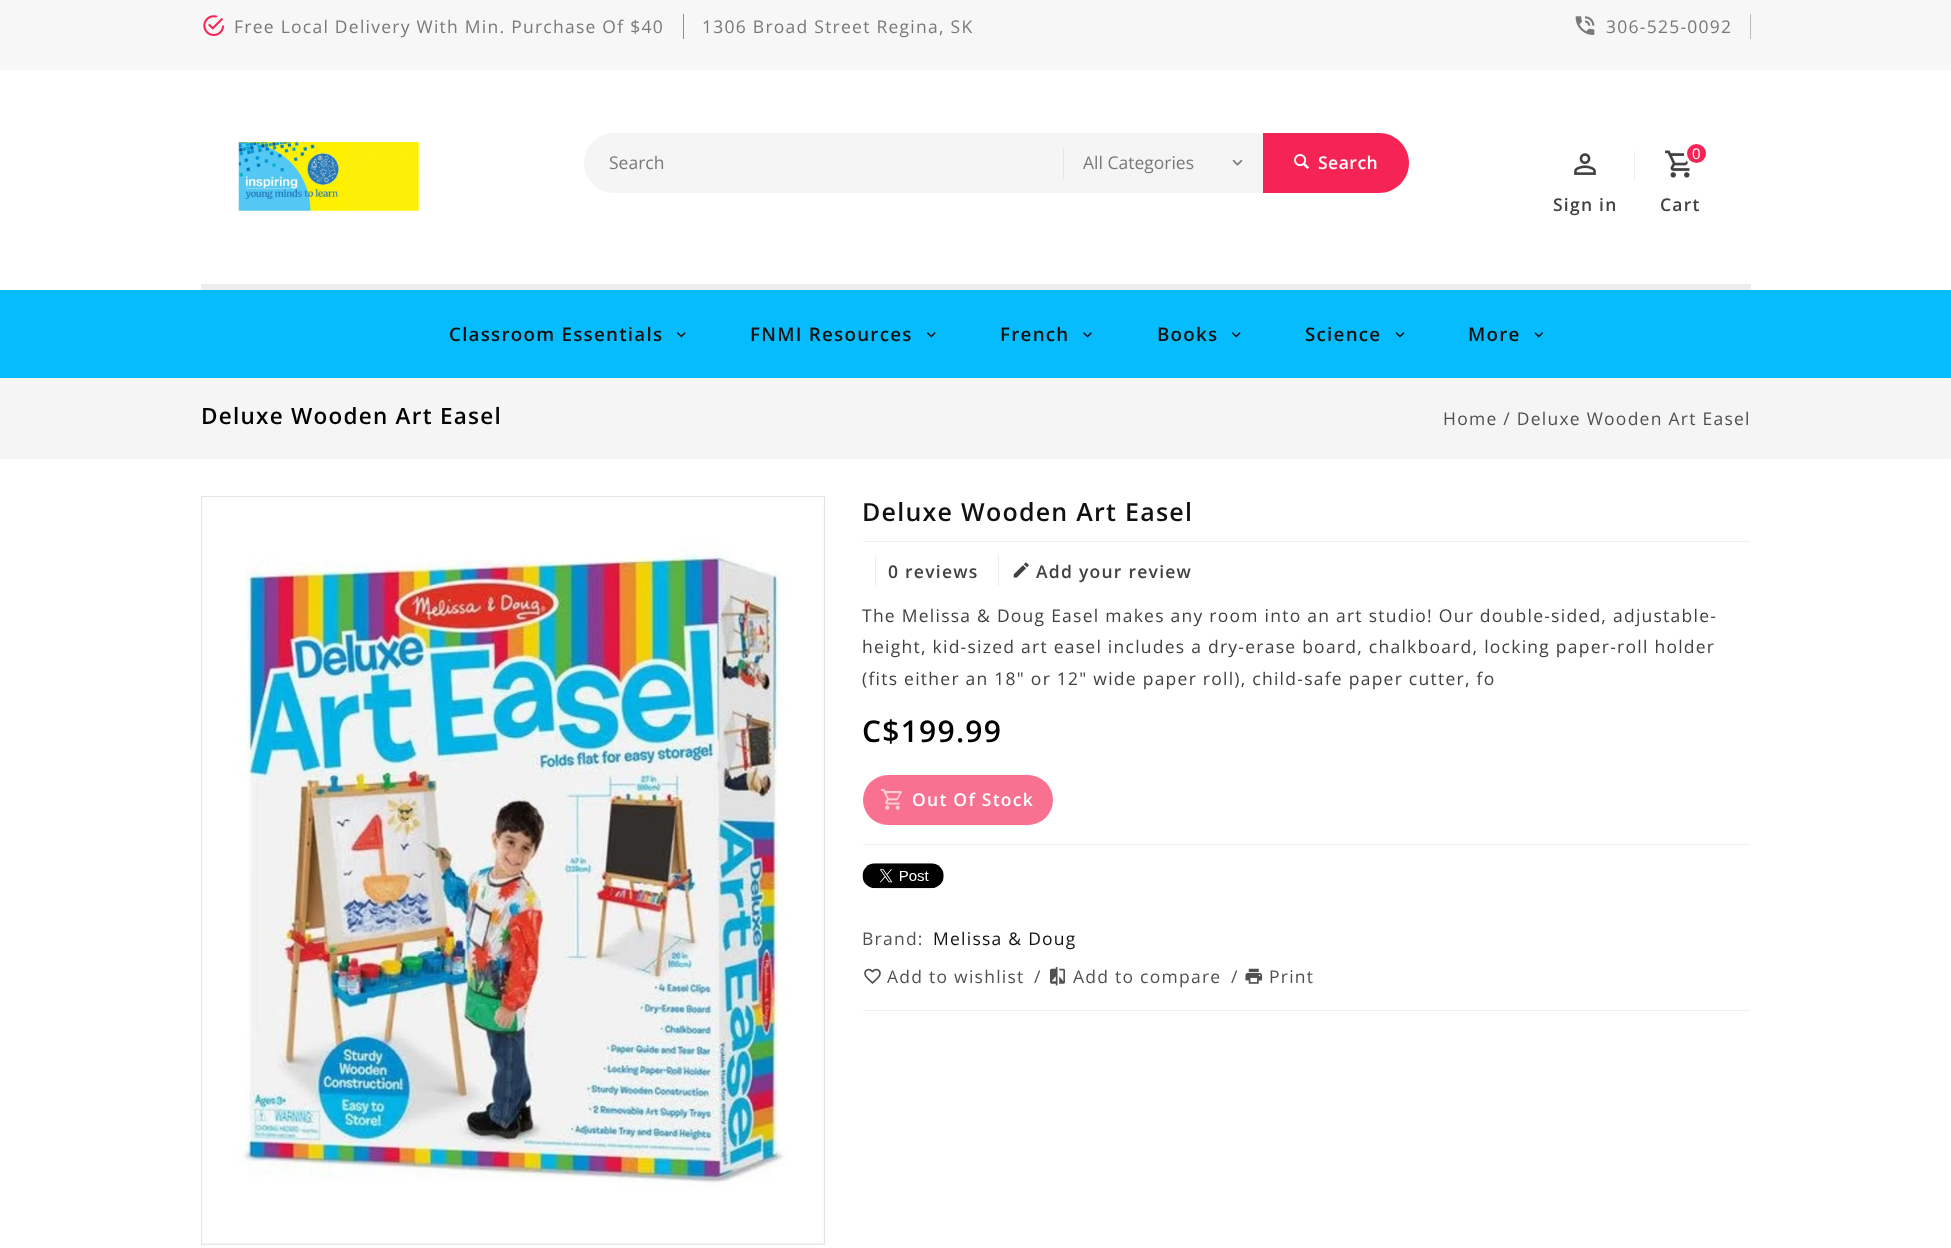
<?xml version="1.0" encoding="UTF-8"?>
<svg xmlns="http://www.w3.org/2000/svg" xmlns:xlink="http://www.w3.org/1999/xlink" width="1951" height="1248">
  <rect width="100%" height="100%" fill="#ffffff" />
  <rect width="1951" height="70" fill="#f7f7f7" />
  <image x="203" y="15" width="22" height="21" xlink:href="image1.png" />
  <rect x="683" y="14" width="1" height="25" fill="#909090" />
  <image x="1575" y="16" width="20" height="19" xlink:href="image2.png" />
  <rect x="1750" y="14" width="1" height="25" fill="#bcbcbc" />
  <rect x="201" y="284" width="1550" height="6" fill="#ededed" />
  <image x="238" y="142" width="181" height="69" xlink:href="image3.png" />
  <path d="M 614 133 h 449 v 60 h -449 c -16.5 0 -30 -13.5 -30 -30 c 0 -16.5 13.5 -30 30 -30 z" fill="#f5f5f5" />
  <rect x="1063" y="133" width="200" height="60" fill="#f5f5f5" />
  <rect x="1063" y="148" width="1" height="31" fill="#e5e5e5" />
  <image x="1232" y="159" width="11" height="7" xlink:href="image4.png" />
  <path d="M 1263 133 h 116 c 16.5 0 30 13.5 30 30 c 0 16.5 -13.5 30 -30 30 h -116 z" fill="#f62455" />
  <image x="1294" y="154" width="15" height="15" xlink:href="image5.png" />
  <image x="1665" y="150" width="25" height="28" xlink:href="image6.png" />
  <circle cx="1696.5" cy="153.5" r="11" fill="#f62455" stroke="#ffffff" stroke-width="3" />
  <image x="1574" y="153" width="22" height="22" xlink:href="image7.png" />
  <rect x="1634" y="151" width="1" height="29" fill="#eeeeee" />
  <rect y="290" width="1951" height="88" fill="#07bcfd" />
  <image x="677" y="332" width="9" height="6" xlink:href="image8.png" />
  <image x="927" y="332" width="9" height="6" xlink:href="image8.png" />
  <image x="1083" y="332" width="9" height="6" xlink:href="image9.png" />
  <image x="1232" y="332" width="9" height="6" xlink:href="image8.png" />
  <image x="1395" y="332" width="10" height="6" xlink:href="image10.png" />
  <image x="1534" y="332" width="9" height="6" xlink:href="image11.png" />
  <rect y="378" width="1951" height="81" fill="#f5f5f5" />
  <rect x="201.5" y="496.5" width="623" height="748" fill="none" stroke="#e5e5e5" />
  <rect x="203" y="498" width="621" height="746" fill="#f7f7f7" />
  <image x="203" y="498" width="621" height="745" xlink:href="image12.png" />
  <rect x="863" y="541" width="887" height="1" fill="#eeeeee" />
  <rect x="875" y="555" width="1" height="31" fill="#eeeeee" />
  <rect x="998" y="555" width="1" height="31" fill="#eeeeee" />
  <image x="1013" y="562" width="16" height="16" xlink:href="image13.png" />
  <rect x="863" y="775" width="190" height="50" rx="25" fill="#f97191" />
  <image x="881" y="789" width="21" height="21" xlink:href="image14.png" />
  <rect x="863" y="844" width="887" height="1" fill="#eeeeee" />
  <rect x="863" y="1010" width="887" height="1" fill="#eeeeee" />
  <image x="862" y="863" width="82" height="26" xlink:href="image15.png" />
  <image x="864" y="968" width="17" height="16" xlink:href="image16.png" />
  <image x="1050" y="967" width="15" height="19" xlink:href="image17.png" />
  <image x="1245" y="968" width="18" height="16" xlink:href="image18.png" />
  <text x="234" y="33" style="font-family: Open Sans; font-size: 17.5px; letter-spacing: 1.25px; fill: #797979">Free Local Delivery With Min. Purchase Of $40</text>
  <text x="702" y="33" style="font-family: Open Sans; font-size: 17.5px; letter-spacing: 1.25px; fill: #797979">1306 Broad Street Regina, SK</text>
  <text x="1606" y="33" style="font-family: Open Sans; font-size: 17.5px; letter-spacing: 1.25px; fill: #797979">306-525-0092</text>
  <text x="609" y="169" style="font-family: Open Sans; font-size: 17.5px; fill: #797979">Search</text>
  <text x="1083" y="169" style="font-family: Open Sans; font-size: 17.5px; fill: #797979">All Categories</text>
  <text x="1318" y="169" style="font-family: Open Sans; font-size: 17.5px; font-weight: 600; letter-spacing: 0.5px; fill: #ffffff">Search</text>
  <text x="1692" y="159" style="font-family: Open Sans; font-size: 15px; letter-spacing: 1.25px; fill: #ffffff">0</text>
  <text x="1660" y="211" style="font-family: Open Sans; font-size: 17.5px; font-weight: 600; letter-spacing: 1.25px; fill: #414141">Cart</text>
  <text x="1553" y="211" style="font-family: Open Sans; font-size: 17.5px; font-weight: 600; letter-spacing: 1.25px; fill: #414141">Sign in</text>
  <text x="449" y="341" style="font-family: Open Sans; font-size: 18.75px; font-weight: 600; letter-spacing: 1.25px; fill: #111111">Classroom Essentials</text>
  <text x="750" y="341" style="font-family: Open Sans; font-size: 18.75px; font-weight: 600; letter-spacing: 1.25px; fill: #111111">FNMI Resources</text>
  <text x="1000" y="341" style="font-family: Open Sans; font-size: 18.75px; font-weight: 600; letter-spacing: 1.25px; fill: #111111">French</text>
  <text x="1157" y="341" style="font-family: Open Sans; font-size: 18.75px; font-weight: 600; letter-spacing: 1.25px; fill: #111111">Books</text>
  <text x="1305" y="341" style="font-family: Open Sans; font-size: 18.75px; font-weight: 600; letter-spacing: 1.25px; fill: #111111">Science</text>
  <text x="1468" y="341" style="font-family: Open Sans; font-size: 18.75px; font-weight: 600; letter-spacing: 1.25px; fill: #111111">More</text>
  <text x="201" y="424" style="font-family: Open Sans; font-size: 22.5px; font-weight: 600; letter-spacing: 1.25px; fill: #000000">Deluxe Wooden Art Easel</text>
  <text x="1443" y="425" style="font-family: Open Sans; font-size: 17.5px; letter-spacing: 1.25px; fill: #505050">Home / Deluxe Wooden Art Easel</text>
  <text x="862" y="521" style="font-family: Open Sans; font-size: 25px; font-weight: 600; letter-spacing: 1.25px; fill: #111111">Deluxe Wooden Art Easel</text>
  <text x="888" y="578" style="font-family: Open Sans; font-size: 17.5px; font-weight: 600; letter-spacing: 1.25px; fill: #414141">0 reviews</text>
  <text x="1036" y="578" style="font-family: Open Sans; font-size: 17.5px; font-weight: 600; letter-spacing: 1.25px; fill: #414141">Add your review</text>
  <text x="862" y="622" style="font-family: Open Sans; font-size: 17.5px; letter-spacing: 1.25px; fill: #414141">The Melissa &amp; Doug Easel makes any room into an art studio! Our double-sided, adjustable-</text>
  <text x="862" y="653" style="font-family: Open Sans; font-size: 17.5px; letter-spacing: 1.25px; fill: #414141">height, kid-sized art easel includes a dry-erase board, chalkboard, locking paper-roll holder</text>
  <text x="862" y="685" style="font-family: Open Sans; font-size: 17.5px; letter-spacing: 1.25px; fill: #414141">(fits either an 18" or 12" wide paper roll), child-safe paper cutter, fo</text>
  <text x="862" y="742" style="font-family: Open Sans; font-size: 30px; font-weight: 600; letter-spacing: 1.25px; fill: #000000">C$199.99</text>
  <text x="912" y="806" style="font-family: Open Sans; font-size: 17.5px; font-weight: 600; letter-spacing: 1.25px; fill: #ffffff">Out Of Stock</text>
  <text x="862" y="945" style="font-family: Open Sans; font-size: 17.5px; letter-spacing: 1.25px; fill: #505050">Brand:</text>
  <text x="933" y="945" style="font-family: Open Sans; font-size: 17.5px; letter-spacing: 1.25px; fill: #111111">Melissa &amp; Doug</text>
  <text x="887" y="983" style="font-family: Open Sans; font-size: 17.5px; letter-spacing: 1.25px; fill: #505050">Add to wishlist</text>
  <text x="1034" y="983" style="font-family: Open Sans; font-size: 17.5px; letter-spacing: 1.25px; fill: #505050">/</text>
  <text x="1073" y="983" style="font-family: Open Sans; font-size: 17.5px; letter-spacing: 1.25px; fill: #505050">Add to compare</text>
  <text x="1231" y="983" style="font-family: Open Sans; font-size: 17.5px; letter-spacing: 1.25px; fill: #505050">/</text>
  <text x="1269" y="983" style="font-family: Open Sans; font-size: 17.5px; letter-spacing: 1.25px; fill: #505050">Print</text>
</svg>
